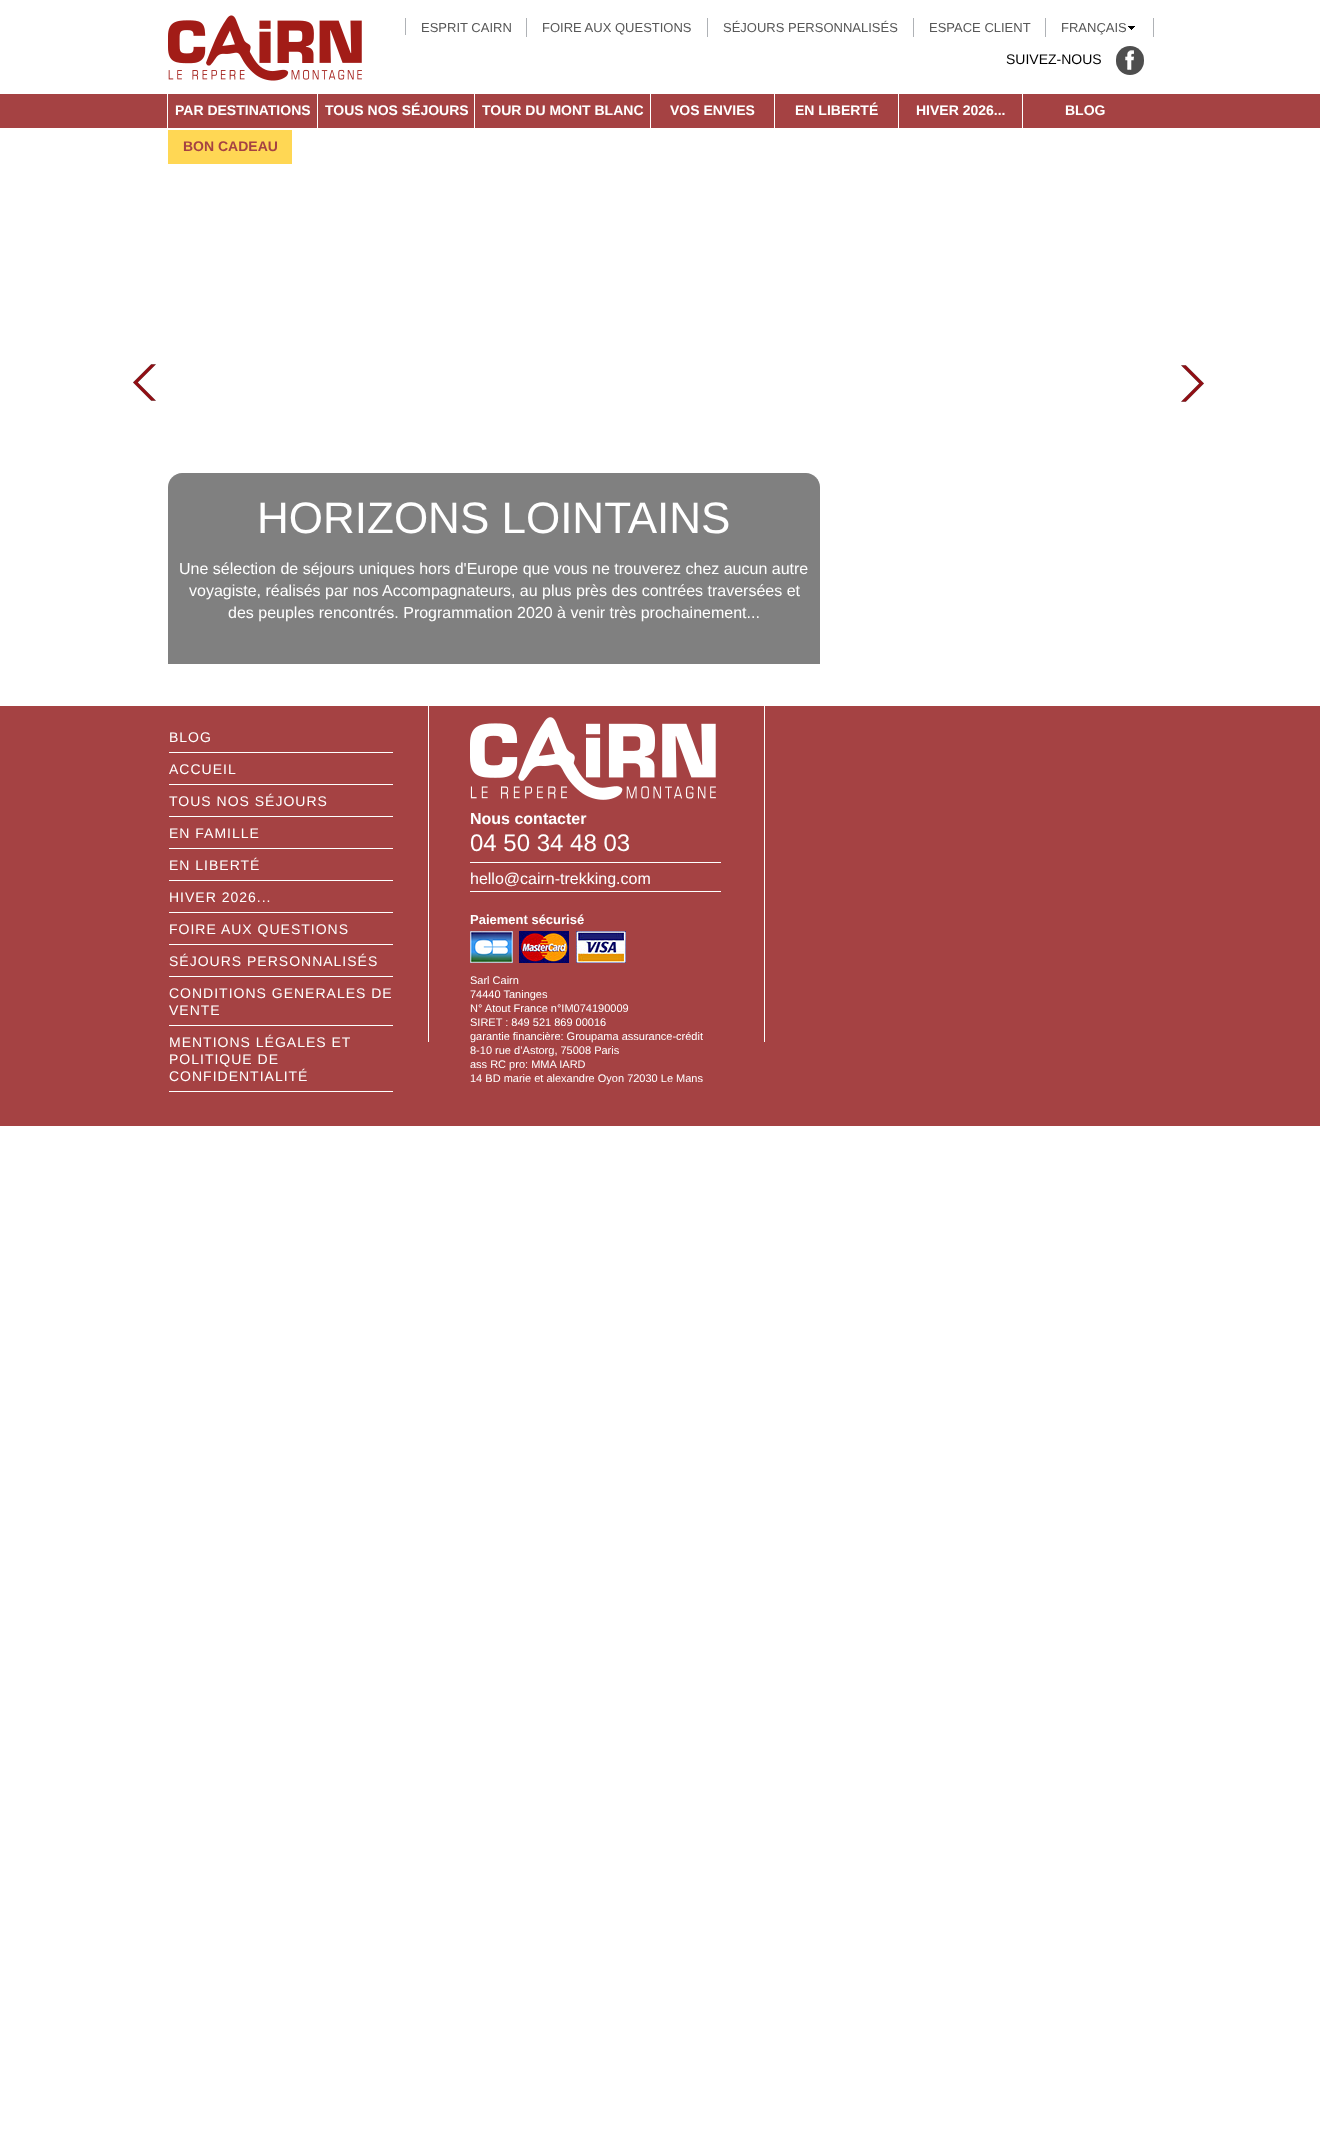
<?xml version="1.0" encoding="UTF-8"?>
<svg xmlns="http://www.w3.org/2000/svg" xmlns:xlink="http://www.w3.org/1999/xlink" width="1320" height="2150">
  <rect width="100%" height="100%" fill="#ffffff" />
  <image x="168" y="15" width="194" height="66" xlink:href="image1.png" />
  <rect x="405" y="18" width="1" height="17" fill="#afb2b6" />
  <rect x="526" y="18" width="1" height="19" fill="#afb2b6" />
  <rect x="707" y="18" width="1" height="19" fill="#afb2b6" />
  <rect x="913" y="18" width="1" height="19" fill="#afb2b6" />
  <rect x="1045" y="18" width="1" height="19" fill="#afb2b6" />
  <rect x="1153" y="18" width="1" height="19" fill="#afb2b6" />
  <image x="1128" y="26" width="7" height="4" xlink:href="image2.png" />
  <rect x="1116" y="46" width="28" height="29" rx="14" fill="#4e4e4e" />
  <image x="1125" y="50" width="9" height="20" xlink:href="image3.png" />
  <rect y="94" width="1320" height="34" fill="#a54243" />
  <rect x="167" y="94" width="1" height="34" fill="#ffffff" />
  <rect x="317" y="94" width="1" height="34" fill="#ffffff" />
  <rect x="474" y="94" width="1" height="34" fill="#ffffff" />
  <rect x="650" y="94" width="1" height="34" fill="#ffffff" />
  <rect x="774" y="94" width="1" height="34" fill="#ffffff" />
  <rect x="898" y="94" width="1" height="34" fill="#ffffff" />
  <rect x="1022" y="94" width="1" height="34" fill="#ffffff" />
  <rect x="168" y="130" width="124" height="34" fill="#ffd754" />
  <image x="133" y="364" width="23" height="37" xlink:href="image4.png" />
  <image x="1181" y="365" width="23" height="37" xlink:href="image5.png" />
  <path d="M 182 473 h 624 c 7.5 0 14 6.5 14 14 v 177 h -652 v -177 c 0 -7.5 6.5 -14 14 -14 z" fill="#808080" />
  <rect y="706" width="1320" height="420" fill="#a54243" />
  <rect x="169" y="752" width="224" height="1" fill="#ffffff" />
  <rect x="169" y="784" width="224" height="1" fill="#ffffff" />
  <rect x="169" y="816" width="224" height="1" fill="#ffffff" />
  <rect x="169" y="848" width="224" height="1" fill="#ffffff" />
  <rect x="169" y="880" width="224" height="1" fill="#ffffff" />
  <rect x="169" y="912" width="224" height="1" fill="#ffffff" />
  <rect x="169" y="944" width="224" height="1" fill="#ffffff" />
  <rect x="169" y="976" width="224" height="1" fill="#ffffff" />
  <rect x="169" y="1025" width="224" height="1" fill="#ffffff" />
  <rect x="169" y="1091" width="224" height="1" fill="#ffffff" />
  <rect x="428" y="706" width="1" height="336" fill="#ffffff" />
  <image x="470" y="717" width="246" height="83" xlink:href="image6.png" />
  <rect x="470" y="862" width="251" height="1" fill="#ffffff" />
  <rect x="470" y="891" width="251" height="1" fill="#ffffff" />
  <image x="470" y="931" width="43" height="32" xlink:href="image7.png" />
  <image x="519" y="931" width="50" height="32" xlink:href="image8.png" />
  <image x="576" y="931" width="50" height="32" xlink:href="image9.png" />
  <rect x="764" y="706" width="1" height="336" fill="#ffffff" />
  <text x="421" y="32" style="font-family: Liberation Sans; font-size: 13px; fill: #575757">ESPRIT CAIRN</text>
  <text x="542" y="32" style="font-family: Liberation Sans; font-size: 13px; fill: #575757">FOIRE AUX QUESTIONS</text>
  <text x="723" y="32" style="font-family: Liberation Sans; font-size: 13px; fill: #575757">SÉJOURS PERSONNALISÉS</text>
  <text x="929" y="32" style="font-family: Liberation Sans; font-size: 13px; fill: #575757">ESPACE CLIENT</text>
  <text x="1061" y="32" style="font-family: Liberation Sans; font-size: 13px; fill: #575757">FRANÇAIS</text>
  <text x="1006" y="64" style="font-family: Liberation Sans; font-size: 14px; fill: #000000">SUIVEZ-NOUS</text>
  <text x="175" y="115" style="font-family: Liberation Sans; font-size: 14px; font-weight: bold; fill: #ffffff">PAR DESTINATIONS</text>
  <text x="325" y="115" style="font-family: Liberation Sans; font-size: 14px; font-weight: bold; fill: #ffffff">TOUS NOS SÉJOURS</text>
  <text x="482" y="115" style="font-family: Liberation Sans; font-size: 14px; font-weight: bold; fill: #ffffff">TOUR DU MONT BLANC</text>
  <text x="670" y="115" style="font-family: Liberation Sans; font-size: 14px; font-weight: bold; fill: #ffffff">VOS ENVIES</text>
  <text x="795" y="115" style="font-family: Liberation Sans; font-size: 14px; font-weight: bold; fill: #ffffff">EN LIBERTÉ</text>
  <text x="916" y="115" style="font-family: Liberation Sans; font-size: 14px; font-weight: bold; fill: #ffffff">HIVER 2026...</text>
  <text x="1065" y="115" style="font-family: Liberation Sans; font-size: 14px; font-weight: bold; fill: #ffffff">BLOG</text>
  <text x="183" y="151" style="font-family: Liberation Sans; font-size: 14px; font-weight: bold; fill: #a54243">BON CADEAU</text>
  <text x="257" y="533" style="font-family: Liberation Sans; font-size: 44px; fill: #ffffff">HORIZONS LOINTAINS</text>
  <text x="179" y="574" style="font-family: Liberation Sans; font-size: 16px; fill: #ffffff">Une sélection de séjours uniques hors d'Europe que vous ne trouverez chez aucun autre</text>
  <text x="189" y="596" style="font-family: Liberation Sans; font-size: 16px; fill: #ffffff">voyagiste, réalisés par nos Accompagnateurs, au plus près des contrées traversées et</text>
  <text x="228" y="618" style="font-family: Liberation Sans; font-size: 16px; fill: #ffffff">des peuples rencontrés. Programmation 2020 à venir très prochainement...</text>
  <text x="169" y="742" style="font-family: Liberation Sans; font-size: 14px; letter-spacing: 1px; fill: #ffffff">BLOG</text>
  <text x="169" y="774" style="font-family: Liberation Sans; font-size: 14px; letter-spacing: 1px; fill: #ffffff">ACCUEIL</text>
  <text x="169" y="806" style="font-family: Liberation Sans; font-size: 14px; letter-spacing: 1px; fill: #ffffff">TOUS NOS SÉJOURS</text>
  <text x="169" y="838" style="font-family: Liberation Sans; font-size: 14px; letter-spacing: 1px; fill: #ffffff">EN FAMILLE</text>
  <text x="169" y="870" style="font-family: Liberation Sans; font-size: 14px; letter-spacing: 1px; fill: #ffffff">EN LIBERTÉ</text>
  <text x="169" y="902" style="font-family: Liberation Sans; font-size: 14px; letter-spacing: 1px; fill: #ffffff">HIVER 2026...</text>
  <text x="169" y="934" style="font-family: Liberation Sans; font-size: 14px; letter-spacing: 1px; fill: #ffffff">FOIRE AUX QUESTIONS</text>
  <text x="169" y="966" style="font-family: Liberation Sans; font-size: 14px; letter-spacing: 1px; fill: #ffffff">SÉJOURS PERSONNALISÉS</text>
  <text x="169" y="998" style="font-family: Liberation Sans; font-size: 14px; letter-spacing: 1px; fill: #ffffff">CONDITIONS GENERALES DE</text>
  <text x="169" y="1015" style="font-family: Liberation Sans; font-size: 14px; letter-spacing: 1px; fill: #ffffff">VENTE</text>
  <text x="169" y="1047" style="font-family: Liberation Sans; font-size: 14px; letter-spacing: 1px; fill: #ffffff">MENTIONS LÉGALES ET</text>
  <text x="169" y="1064" style="font-family: Liberation Sans; font-size: 14px; letter-spacing: 1px; fill: #ffffff">POLITIQUE DE</text>
  <text x="169" y="1081" style="font-family: Liberation Sans; font-size: 14px; letter-spacing: 1px; fill: #ffffff">CONFIDENTIALITÉ</text>
  <text x="470" y="824" style="font-family: Liberation Sans; font-size: 16px; font-weight: bold; fill: #ffffff">Nous contacter</text>
  <text x="470" y="851" style="font-family: Liberation Sans; font-size: 24px; fill: #ffffff">04 50 34 48 03</text>
  <text x="470" y="884" style="font-family: Liberation Sans; font-size: 16px; fill: #ffffff">hello@cairn-trekking.com</text>
  <text x="470" y="924" style="font-family: Liberation Sans; font-size: 13px; font-weight: bold; fill: #ffffff">Paiement sécurisé</text>
  <text x="470" y="984" style="font-family: Liberation Sans; font-size: 11px; fill: #ffffff">Sarl Cairn</text>
  <text x="470" y="998" style="font-family: Liberation Sans; font-size: 11px; fill: #ffffff">74440 Taninges</text>
  <text x="470" y="1012" style="font-family: Liberation Sans; font-size: 11px; fill: #ffffff">N° Atout France n°IM074190009</text>
  <text x="470" y="1026" style="font-family: Liberation Sans; font-size: 11px; fill: #ffffff">SIRET : 849 521 869 00016</text>
  <text x="470" y="1040" style="font-family: Liberation Sans; font-size: 11px; fill: #ffffff">garantie financière: Groupama assurance-crédit</text>
  <text x="470" y="1054" style="font-family: Liberation Sans; font-size: 11px; fill: #ffffff">8-10 rue d’Astorg, 75008 Paris</text>
  <text x="470" y="1068" style="font-family: Liberation Sans; font-size: 11px; fill: #ffffff">ass RC pro: MMA IARD</text>
  <text x="470" y="1082" style="font-family: Liberation Sans; font-size: 11px; fill: #ffffff">14 BD marie et alexandre Oyon 72030 Le Mans</text>
</svg>
